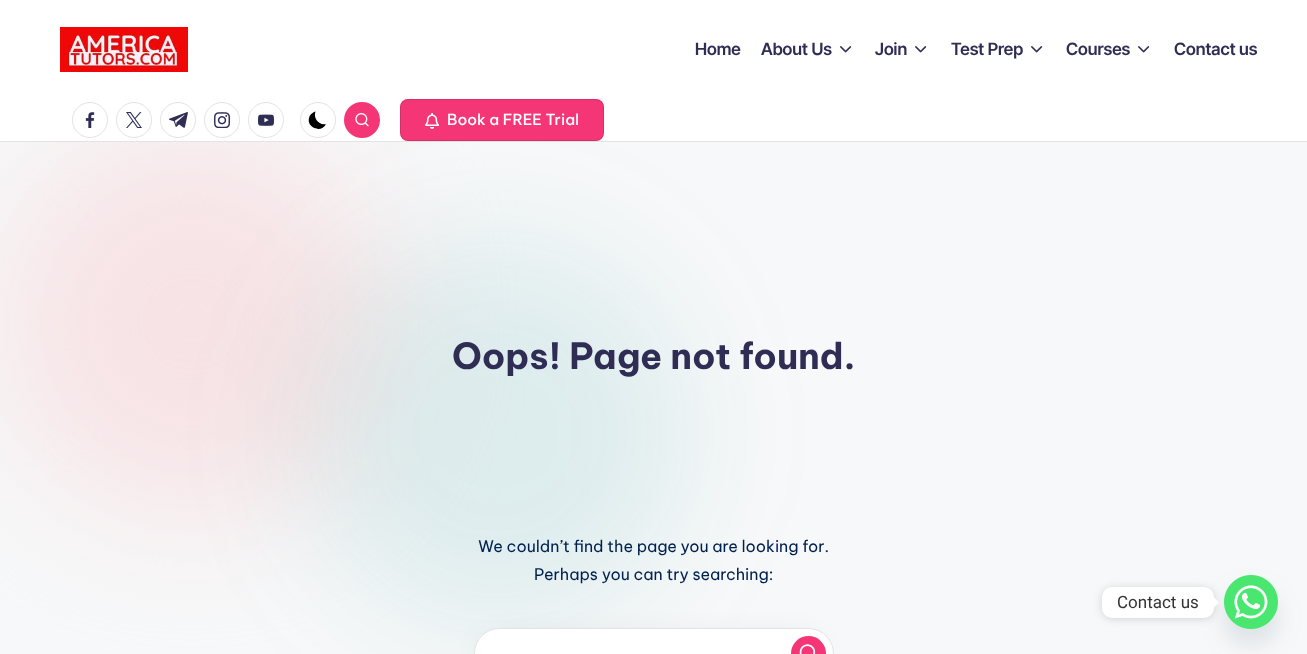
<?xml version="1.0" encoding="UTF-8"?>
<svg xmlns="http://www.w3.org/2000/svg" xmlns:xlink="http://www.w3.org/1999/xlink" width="1307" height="654">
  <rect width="100%" height="100%" fill="#f7f8f9" />
  <rect y="130" width="384" height="384" rx="192" fill="#f7e3e5" filter="blur(64px)" />
  <rect x="304" y="240" width="384" height="384" rx="192" fill="#04868b" fill-opacity="0.1" filter="blur(64px)" />
  <rect width="1307" height="141" fill="#ffffff" />
  <rect y="141" width="1307" height="1" fill="#e3e3e3" />
  <image x="60" y="27" width="128" height="45" xlink:href="image1.png" />
  <image x="840" y="46" width="12" height="7" xlink:href="image2.png" />
  <image x="915" y="46" width="12" height="7" xlink:href="image2.png" />
  <image x="1031" y="46" width="12" height="7" xlink:href="image2.png" />
  <image x="1138" y="46" width="12" height="7" xlink:href="image2.png" />
  <circle cx="90" cy="120" r="17.5" fill="none" stroke="#e3e3e3" />
  <image x="85" y="112" width="10" height="16" xlink:href="image3.png" />
  <circle cx="134" cy="120" r="17.5" fill="none" stroke="#e3e3e3" />
  <image x="126" y="112" width="16" height="16" xlink:href="image4.png" />
  <circle cx="178" cy="120" r="17.5" fill="none" stroke="#e3e3e3" />
  <image x="169" y="112" width="19" height="16" xlink:href="image5.png" />
  <circle cx="222" cy="120" r="17.5" fill="none" stroke="#e3e3e3" />
  <image x="214" y="112" width="16" height="16" xlink:href="image6.png" />
  <circle cx="266" cy="120" r="17.5" fill="none" stroke="#e3e3e3" />
  <image x="258" y="114" width="16" height="12" xlink:href="image7.png" />
  <circle cx="318" cy="120" r="17.5" fill="none" stroke="#e3e3e3" />
  <path d="M 326 124 c -7 1.5 -13 -5.5 -10.5 -12.5 c -2 0.5 -4 2 -5.5 4 c -6 11 11 19 16 8.5 z" fill="#000000" />
  <circle cx="362" cy="120" r="18" fill="#f43676" />
  <image x="355" y="113" width="14" height="14" xlink:href="image8.png" />
  <rect x="400" y="99" width="204" height="42" rx="8" fill="#f43676" />
  <rect x="400.5" y="99.5" width="203" height="41" rx="7.5" fill="none" stroke="#000000" stroke-opacity="0.12" />
  <image x="425" y="113" width="14" height="16" xlink:href="image9.png" />
  <rect x="487" y="644" width="328" height="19" rx="9.5" fill="#000000" fill-opacity="0.15" filter="blur(16px)" />
  <rect x="474" y="628" width="360" height="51" rx="25.5" fill="#ffffff" />
  <rect x="474.5" y="628.5" width="359" height="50" rx="25" fill="none" stroke="#b9b9b9" stroke-opacity="0.4" />
  <circle cx="808.5" cy="653.5" r="17.5" fill="#f43676" />
  <image x="799" y="644" width="17" height="10" xlink:href="image10.png" />
  <rect x="1224" y="591" width="54" height="54" rx="27" fill="#49687e" fill-opacity="0.16" filter="blur(12px)" />
  <image x="1224" y="575" width="54" height="54" xlink:href="image11.png" />
  <rect x="1102" y="588" width="112" height="31" rx="10" fill="#000000" fill-opacity="0.15" filter="blur(4px)" />
  <rect x="1102" y="587" width="112" height="31" rx="10" fill="#ffffff" />
  <path d="M 1214 607.5 v -10 l 5 5 z" fill="#ffffff" />
  <text x="695" y="55" style="font-family: Inter Tight; font-size: 17px; font-weight: 600; fill: #302d55">Home</text>
  <text x="761" y="55" style="font-family: Inter Tight; font-size: 17px; font-weight: 600; fill: #302d55">About Us</text>
  <text x="875" y="55" style="font-family: Inter Tight; font-size: 17px; font-weight: 600; fill: #302d55">Join</text>
  <text x="951" y="55" style="font-family: Inter Tight; font-size: 17px; font-weight: 600; fill: #302d55">Test Prep</text>
  <text x="1066" y="55" style="font-family: Inter Tight; font-size: 17px; font-weight: 600; fill: #302d55">Courses</text>
  <text x="1174" y="55" style="font-family: Inter Tight; font-size: 17px; font-weight: 600; fill: #302d55">Contact us</text>
  <text x="447" y="125" style="font-family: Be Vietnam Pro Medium; font-size: 15.25px; font-weight: 500; fill: #ffffff">Book a FREE Trial</text>
  <text x="452" y="369" style="font-family: Be Vietnam Pro; font-size: 36px; font-weight: bold; fill: #302d55">Oops! Page not found.</text>
  <text x="478" y="552" style="font-family: Be Vietnam Pro; font-size: 16px; fill: #002050">We couldn’t find the page you are looking for.</text>
  <text x="534" y="580" style="font-family: Be Vietnam Pro; font-size: 16px; fill: #002050">Perhaps you can try searching:</text>
  <text x="1117" y="608" style="font-family: Roboto; font-size: 17px; fill: #333333">Contact us</text>
</svg>
